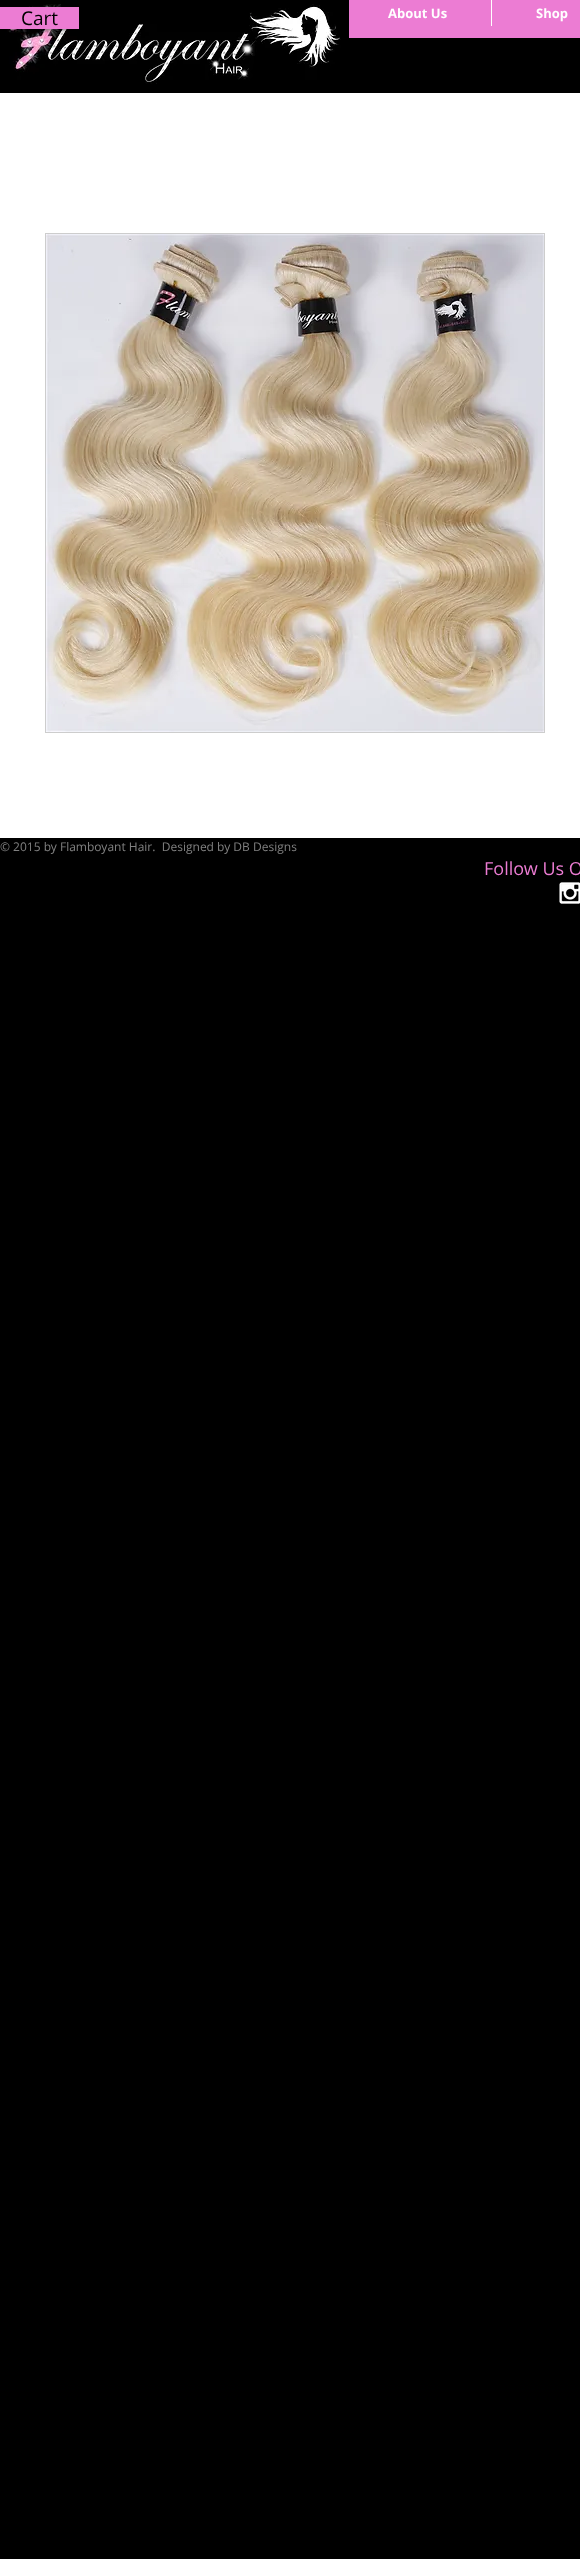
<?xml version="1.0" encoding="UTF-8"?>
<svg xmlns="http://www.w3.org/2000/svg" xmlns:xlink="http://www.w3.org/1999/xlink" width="580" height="2559">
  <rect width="100%" height="100%" fill="#000000" />
  <image x="0" y="0" width="349" height="84" xlink:href="image1.png" />
  <rect x="349" width="231" height="38" fill="#ec7cd3" />
  <rect y="8" width="79" height="22" fill="#000000" fill-opacity="0.6" filter="blur(2px)" />
  <rect y="7" width="79" height="22" fill="#ec7cd3" />
  <rect x="491" width="1" height="26" fill="#ffffff" />
  <rect y="93" width="580" height="745" fill="#ffffff" />
  <rect x="45.5" y="233.5" width="499" height="499" fill="none" stroke="#cdcdcd" />
  <image x="46" y="234" width="498" height="498" xlink:href="image2.png" />
  <image x="559" y="882" width="21" height="22" xlink:href="image3.png" />
  <text x="21" y="25" style="font-family: Open Sans; font-size: 19px; fill: #000000">Cart</text>
  <text x="388" y="18" style="font-family: Open Sans; font-size: 13px; font-weight: bold; fill: #ffffff">About Us</text>
  <text x="536" y="18" style="font-family: Open Sans; font-size: 13px; font-weight: bold; fill: #ffffff">Shop</text>
  <text x="0" y="851" style="font-family: Open Sans; font-size: 12px; fill: #818181" xml:space="preserve">© 2015 by Flamboyant Hair.  Designed by DB Designs</text>
  <text x="484" y="875" style="font-family: Open Sans; font-size: 18px; fill: #ec7cd3">Follow Us O</text>
</svg>
